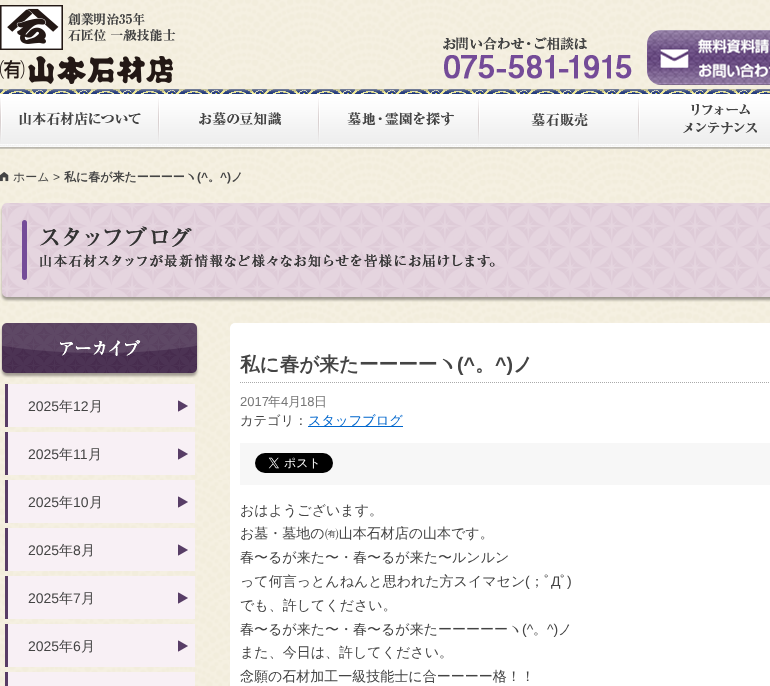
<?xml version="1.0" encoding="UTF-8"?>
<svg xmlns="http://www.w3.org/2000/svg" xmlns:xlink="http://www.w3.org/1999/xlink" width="770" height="686">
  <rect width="100%" height="100%" fill="#ffffff" />
  <image x="0" y="0" width="770" height="686" xlink:href="image1.png" />
  <image x="0" y="5" width="176" height="79" xlink:href="image2.png" />
  <image x="443" y="37" width="189" height="42" xlink:href="image3.png" />
  <image x="647" y="30" width="123" height="55" xlink:href="image4.png" />
  <image x="0" y="89" width="770" height="60" xlink:href="image5.png" />
  <image x="0" y="98" width="160" height="48" xlink:href="image6.png" />
  <image x="176" y="98" width="144" height="49" xlink:href="image7.png" />
  <image x="347" y="98" width="133" height="49" xlink:href="image8.png" />
  <image x="502" y="98" width="138" height="48" xlink:href="image9.png" />
  <image x="665" y="104" width="102" height="43" xlink:href="image10.png" />
  <image x="0" y="172" width="9" height="10" xlink:href="image11.png" />
  <image x="0" y="203" width="770" height="99" xlink:href="image12.png" />
  <image x="40" y="226" width="152" height="21" xlink:href="image13.png" />
  <image x="40" y="254" width="455" height="13" xlink:href="image14.png" />
  <image x="0" y="323" width="199" height="55" xlink:href="image15.png" />
  <rect x="8" y="384" width="187" height="43" fill="#f8f0f5" />
  <image x="178" y="400" width="10" height="12" xlink:href="image16.png" />
  <rect x="5" y="384" width="3" height="43" fill="#583d66" />
  <rect x="8" y="432" width="187" height="43" fill="#f8f0f5" />
  <image x="178" y="448" width="10" height="12" xlink:href="image16.png" />
  <rect x="5" y="432" width="3" height="43" fill="#583d66" />
  <rect x="8" y="480" width="187" height="43" fill="#f8f0f5" />
  <image x="178" y="496" width="10" height="12" xlink:href="image16.png" />
  <rect x="5" y="480" width="3" height="43" fill="#583d66" />
  <rect x="8" y="528" width="187" height="43" fill="#f8f0f5" />
  <image x="178" y="544" width="10" height="12" xlink:href="image16.png" />
  <rect x="5" y="528" width="3" height="43" fill="#583d66" />
  <rect x="8" y="576" width="187" height="43" fill="#f8f0f5" />
  <image x="178" y="592" width="10" height="12" xlink:href="image16.png" />
  <rect x="5" y="576" width="3" height="43" fill="#583d66" />
  <rect x="8" y="624" width="187" height="43" fill="#f8f0f5" />
  <image x="178" y="640" width="10" height="12" xlink:href="image16.png" />
  <rect x="5" y="624" width="3" height="43" fill="#583d66" />
  <rect x="8" y="672" width="187" height="14" fill="#f8f0f5" />
  <rect x="5" y="672" width="3" height="14" fill="#583d66" />
  <rect x="230" y="323" width="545" height="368" rx="5" fill="#ffffff" />
  <path d="M 240 382.5 h 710" fill="none" stroke="#aaaaaa" stroke-dasharray="1 1" />
  <rect x="308" y="426" width="95" height="1" fill="#0066cc" />
  <rect x="240" y="443" width="530" height="42" fill="#f7f7f7" />
  <image x="255" y="453" width="78" height="20" xlink:href="image17.png" />
  <text x="13" y="181" style="font-family: WenQuanYi Zen Hei; font-size: 12px; font-weight: 500; fill: #444444">ホーム</text>
  <text x="53" y="181" style="font-family: Liberation Sans; font-size: 12px; fill: #444444">&gt;</text>
  <text x="64" y="181" style="font-family: WenQuanYi Zen Hei; font-size: 12px; font-weight: bold; fill: #444444">私に春が来たーーーーヽ</text>
  <text x="197" y="181" style="font-family: Liberation Sans; font-size: 12px; font-weight: bold; fill: #444444">(^</text>
  <text x="208" y="181" style="font-family: WenQuanYi Zen Hei; font-size: 12px; font-weight: bold; fill: #444444">。</text>
  <text x="220" y="181" style="font-family: Liberation Sans; font-size: 12px; font-weight: bold; fill: #444444">^)</text>
  <text x="231" y="181" style="font-family: WenQuanYi Zen Hei; font-size: 12px; font-weight: bold; fill: #444444">ノ</text>
  <text x="28" y="411" style="font-family: Liberation Sans; font-size: 14px; fill: #444444">2025</text>
  <text x="59" y="411" style="font-family: WenQuanYi Zen Hei; font-size: 14px; font-weight: 500; fill: #444444">年</text>
  <text x="73" y="411" style="font-family: Liberation Sans; font-size: 14px; fill: #444444">12</text>
  <text x="89" y="411" style="font-family: WenQuanYi Zen Hei; font-size: 14px; font-weight: 500; fill: #444444">月</text>
  <text x="28" y="459" style="font-family: Liberation Sans; font-size: 14px; fill: #444444">2025</text>
  <text x="59" y="459" style="font-family: WenQuanYi Zen Hei; font-size: 14px; font-weight: 500; fill: #444444">年</text>
  <text x="73" y="459" style="font-family: Liberation Sans; font-size: 14px; fill: #444444">11</text>
  <text x="88" y="459" style="font-family: WenQuanYi Zen Hei; font-size: 14px; font-weight: 500; fill: #444444">月</text>
  <text x="28" y="507" style="font-family: Liberation Sans; font-size: 14px; fill: #444444">2025</text>
  <text x="59" y="507" style="font-family: WenQuanYi Zen Hei; font-size: 14px; font-weight: 500; fill: #444444">年</text>
  <text x="73" y="507" style="font-family: Liberation Sans; font-size: 14px; fill: #444444">10</text>
  <text x="89" y="507" style="font-family: WenQuanYi Zen Hei; font-size: 14px; font-weight: 500; fill: #444444">月</text>
  <text x="28" y="555" style="font-family: Liberation Sans; font-size: 14px; fill: #444444">2025</text>
  <text x="59" y="555" style="font-family: WenQuanYi Zen Hei; font-size: 14px; font-weight: 500; fill: #444444">年</text>
  <text x="73" y="555" style="font-family: Liberation Sans; font-size: 14px; fill: #444444">8</text>
  <text x="81" y="555" style="font-family: WenQuanYi Zen Hei; font-size: 14px; font-weight: 500; fill: #444444">月</text>
  <text x="28" y="603" style="font-family: Liberation Sans; font-size: 14px; fill: #444444">2025</text>
  <text x="59" y="603" style="font-family: WenQuanYi Zen Hei; font-size: 14px; font-weight: 500; fill: #444444">年</text>
  <text x="73" y="603" style="font-family: Liberation Sans; font-size: 14px; fill: #444444">7</text>
  <text x="81" y="603" style="font-family: WenQuanYi Zen Hei; font-size: 14px; font-weight: 500; fill: #444444">月</text>
  <text x="28" y="651" style="font-family: Liberation Sans; font-size: 14px; fill: #444444">2025</text>
  <text x="59" y="651" style="font-family: WenQuanYi Zen Hei; font-size: 14px; font-weight: 500; fill: #444444">年</text>
  <text x="73" y="651" style="font-family: Liberation Sans; font-size: 14px; fill: #444444">6</text>
  <text x="81" y="651" style="font-family: WenQuanYi Zen Hei; font-size: 14px; font-weight: 500; fill: #444444">月</text>
  <text x="240" y="371" style="font-family: WenQuanYi Zen Hei; font-size: 19.6px; font-weight: bold; fill: #444444">私に春が来たーーーーヽ</text>
  <text x="457" y="371" style="font-family: Liberation Sans; font-size: 19.6px; font-weight: bold; fill: #444444">(^</text>
  <text x="475" y="371" style="font-family: WenQuanYi Zen Hei; font-size: 19.6px; font-weight: bold; fill: #444444">。</text>
  <text x="495" y="371" style="font-family: Liberation Sans; font-size: 19.6px; font-weight: bold; fill: #444444">^)</text>
  <text x="513" y="371" style="font-family: WenQuanYi Zen Hei; font-size: 19.6px; font-weight: bold; fill: #444444">ノ</text>
  <text x="240" y="406" style="font-family: Liberation Sans; font-size: 13px; fill: #777777">2017</text>
  <text x="268" y="406" style="font-family: WenQuanYi Zen Hei; font-size: 13px; font-weight: 500; fill: #777777">年</text>
  <text x="281" y="406" style="font-family: Liberation Sans; font-size: 13px; fill: #777777">4</text>
  <text x="288" y="406" style="font-family: WenQuanYi Zen Hei; font-size: 13px; font-weight: 500; fill: #777777">月</text>
  <text x="300" y="406" style="font-family: Liberation Sans; font-size: 13px; fill: #777777">18</text>
  <text x="314" y="406" style="font-family: WenQuanYi Zen Hei; font-size: 13px; font-weight: 500; fill: #777777">日</text>
  <text x="240" y="425" style="font-family: WenQuanYi Zen Hei; font-size: 13.25px; font-weight: 500; fill: #444444">カテゴリ：</text>
  <text x="308" y="425" style="font-family: WenQuanYi Zen Hei; font-size: 13.25px; font-weight: 500; fill: #0066cc">スタッフブログ</text>
  <text x="240" y="515" style="font-family: WenQuanYi Zen Hei; font-size: 14px; font-weight: 500; fill: #444444">おはようございます。</text>
  <text x="240" y="538" style="font-family: WenQuanYi Zen Hei; font-size: 14px; font-weight: 500; fill: #444444">お墓・墓地の㈲山本石材店の山本です。</text>
  <text x="240" y="562" style="font-family: WenQuanYi Zen Hei; font-size: 14px; font-weight: 500; fill: #444444">春〜るが来た〜・春〜るが来た〜ルンルン</text>
  <text x="240" y="586" style="font-family: WenQuanYi Zen Hei; font-size: 14px; font-weight: 500; fill: #444444">って何言っとんねんと思われた方スイマセン</text>
  <text x="525" y="586" style="font-family: Liberation Sans; font-size: 14px; fill: #444444">(</text>
  <text x="530" y="586" style="font-family: WenQuanYi Zen Hei; font-size: 14px; font-weight: 500; fill: #444444">；</text>
  <text x="544" y="586" style="font-family: IPAPGothic; font-size: 14px; fill: #444444">ﾟ</text>
  <text x="551" y="586" style="font-family: Liberation Sans; font-size: 14px; fill: #444444">Д</text>
  <text x="560" y="586" style="font-family: IPAPGothic; font-size: 14px; fill: #444444">ﾟ</text>
  <text x="567" y="586" style="font-family: Liberation Sans; font-size: 14px; fill: #444444">)</text>
  <text x="240" y="610" style="font-family: WenQuanYi Zen Hei; font-size: 14px; font-weight: 500; fill: #444444">でも、許してください。</text>
  <text x="240" y="634" style="font-family: WenQuanYi Zen Hei; font-size: 14px; font-weight: 500; fill: #444444">春〜るが来た〜・春〜るが来たーーーーーヽ</text>
  <text x="522" y="634" style="font-family: Liberation Sans; font-size: 14px; fill: #444444">(^</text>
  <text x="533" y="634" style="font-family: WenQuanYi Zen Hei; font-size: 14px; font-weight: 500; fill: #444444">。</text>
  <text x="547" y="634" style="font-family: Liberation Sans; font-size: 14px; fill: #444444">^)</text>
  <text x="558" y="634" style="font-family: WenQuanYi Zen Hei; font-size: 14px; font-weight: 500; fill: #444444">ノ</text>
  <text x="240" y="657" style="font-family: WenQuanYi Zen Hei; font-size: 14px; font-weight: 500; fill: #444444">また、今日は、許してください。</text>
  <text x="240" y="681" style="font-family: WenQuanYi Zen Hei; font-size: 14px; font-weight: 500; fill: #444444">念願の石材加工一級技能士に合ーーーー格！！</text>
</svg>
